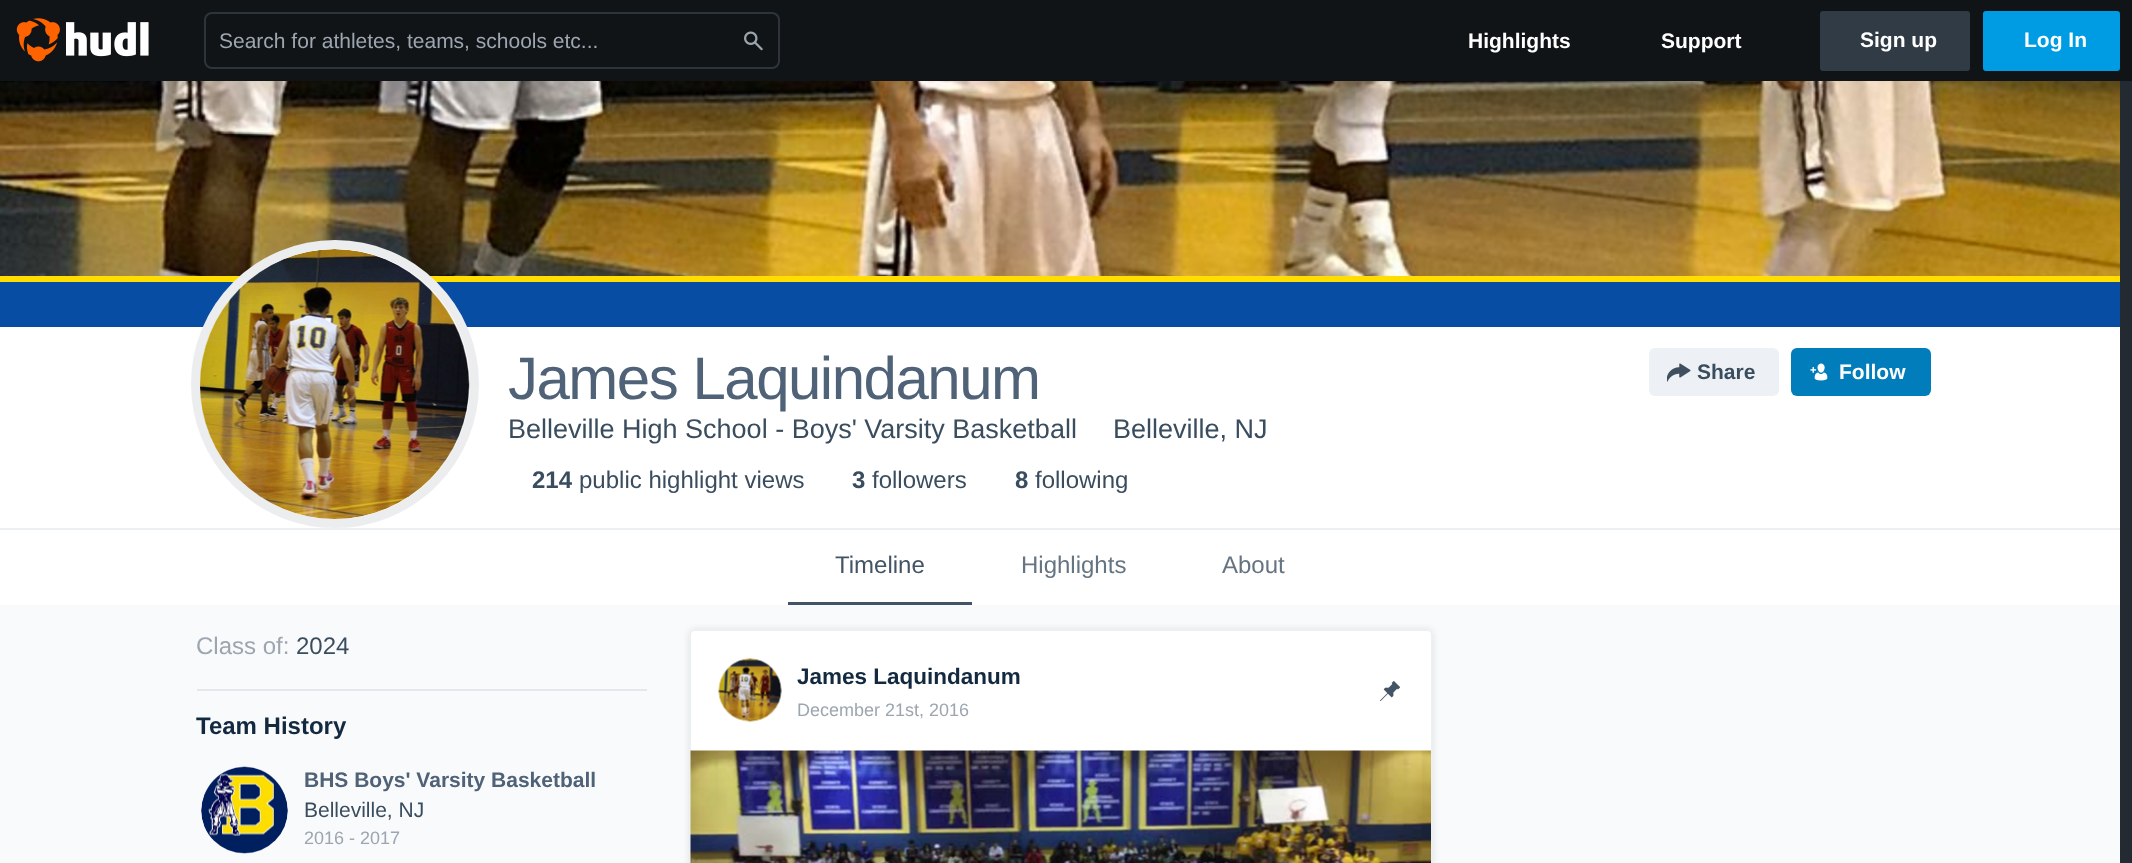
<?xml version="1.0" encoding="UTF-8"?>
<svg xmlns="http://www.w3.org/2000/svg" xmlns:xlink="http://www.w3.org/1999/xlink" width="2132" height="863">
  <defs>
    <linearGradient id="g1" gradientUnits="userSpaceOnUse" x1="1060" y1="276" x2="1060" y2="528"><stop offset="0" stop-color="#ffffff" stop-opacity="0.85" /><stop offset="0.2" stop-color="#ffffff" /></linearGradient>
  </defs>
  <rect width="100%" height="100%" fill="#232a31" />
  <rect width="2132" height="81" fill="#101417" />
  <image x="16" y="18" width="133" height="44" xlink:href="image1.png" />
  <rect x="205" y="13" width="574" height="55" rx="7" fill="none" stroke="#2c353e" stroke-width="2" />
  <image x="744" y="31" width="19" height="20" xlink:href="image2.png" />
  <rect x="1822.5" y="13.5" width="145" height="55" rx="0.5" fill="#313b45" stroke="#313b45" stroke-width="5" />
  <rect x="1985.5" y="13.5" width="132" height="55" rx="0.5" fill="#009ce3" stroke="#009ce3" stroke-width="5" />
  <image x="0" y="81" width="2120" height="195" xlink:href="image3.png" />
  <rect y="327" width="2120" height="201" fill="url(#g1)" />
  <rect y="528" width="2120" height="2" fill="#edf0f2" />
  <rect y="276" width="2120" height="6" fill="#ffdd00" />
  <rect y="282" width="2120" height="45" fill="#084da4" />
  <circle cx="335" cy="384" r="144" fill="#ffffff" />
  <circle cx="335" cy="384" r="139.5" fill="none" stroke="#45525e" stroke-opacity="0.1" stroke-width="9" />
  <image x="200" y="249" width="270" height="270" xlink:href="image4.png" />
  <rect x="1649" y="348" width="130" height="48" rx="6" fill="#edf1f5" />
  <image x="1667" y="363" width="24" height="19" xlink:href="image5.png" />
  <rect x="1791" y="348" width="140" height="48" rx="6" fill="#027dbb" />
  <image x="1810" y="363" width="18" height="18" xlink:href="image6.png" />
  <rect y="530" width="2120" height="75" fill="#ffffff" />
  <rect x="788" y="602" width="184" height="3" fill="#425465" />
  <rect y="605" width="2120" height="258" fill="#f9fafb" />
  <rect x="197" y="689" width="450" height="2" fill="#e4e7eb" />
  <image x="201" y="766" width="87" height="88" xlink:href="image7.png" />
  <rect x="689" y="629" width="744" height="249" rx="6" fill="#000000" fill-opacity="0.1" filter="blur(3px)" />
  <path d="M 695 629 h 732 c 3.5 0 6 2.5 6 6 v 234 h -744 v -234 c 0 -3.5 2.5 -6 6 -6 z" fill="#ffffff" />
  <rect x="690" y="630" width="742" height="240" rx="5" fill="none" stroke="#edf0f2" stroke-width="2" />
  <image x="718" y="658" width="64" height="64" xlink:href="image8.png" />
  <image x="1380" y="681" width="20" height="20" xlink:href="image9.png" />
  <image x="690" y="750" width="741" height="113" xlink:href="image10.png" />
  <text x="219" y="48" style="font-family: Liberation Sans; font-size: 21px; fill: #9da6b0">Search for athletes, teams, schools etc...</text>
  <text x="1468" y="48" style="font-family: Liberation Sans; font-size: 21px; font-weight: bold; fill: #ffffff">Highlights</text>
  <text x="1661" y="48" style="font-family: Liberation Sans; font-size: 21px; font-weight: bold; fill: #ffffff">Support</text>
  <text x="1860" y="47" style="font-family: Liberation Sans; font-size: 21px; font-weight: bold; fill: #ffffff">Sign up</text>
  <text x="2024" y="47" style="font-family: Liberation Sans; font-size: 21px; font-weight: bold; fill: #ffffff">Log In</text>
  <text x="508" y="399" style="font-family: Liberation Sans; font-size: 60px; letter-spacing: -1.5px; fill: #506277">James Laquindanum</text>
  <text x="1697" y="379" style="font-family: Liberation Sans; font-size: 21px; font-weight: bold; fill: #3a4d5f">Share</text>
  <text x="1839" y="379" style="font-family: Liberation Sans; font-size: 21px; font-weight: bold; fill: #ffffff">Follow</text>
  <text x="508" y="438" style="font-family: Liberation Sans; font-size: 27px; fill: #3a4d5f">Belleville High School - Boys' Varsity Basketball</text>
  <text x="1113" y="438" style="font-family: Liberation Sans; font-size: 27px; fill: #3a4d5f">Belleville, NJ</text>
  <text x="532" y="488" style="font-family: Liberation Sans; font-size: 24px; font-weight: bold; fill: #3a4d5f">214</text>
  <text x="579" y="488" style="font-family: Liberation Sans; font-size: 24px; fill: #3a4d5f">public highlight views</text>
  <text x="852" y="488" style="font-family: Liberation Sans; font-size: 24px; font-weight: bold; fill: #3a4d5f">3</text>
  <text x="872" y="488" style="font-family: Liberation Sans; font-size: 24px; fill: #3a4d5f">followers</text>
  <text x="1015" y="488" style="font-family: Liberation Sans; font-size: 24px; font-weight: bold; fill: #3a4d5f">8</text>
  <text x="1035" y="488" style="font-family: Liberation Sans; font-size: 24px; fill: #3a4d5f">following</text>
  <text x="835" y="573" style="font-family: Liberation Sans; font-size: 24px; fill: #425465">Timeline</text>
  <text x="1021" y="573" style="font-family: Liberation Sans; font-size: 24px; fill: #667482">Highlights</text>
  <text x="1222" y="573" style="font-family: Liberation Sans; font-size: 24px; fill: #667482">About</text>
  <text x="196" y="654" style="font-family: Liberation Sans; font-size: 24px; fill: #9da6b0">Class of:</text>
  <text x="296" y="654" style="font-family: Liberation Sans; font-size: 24px; fill: #3a4d5f">2024</text>
  <text x="196" y="734" style="font-family: Liberation Sans; font-size: 24px; font-weight: bold; fill: #13293f">Team History</text>
  <text x="304" y="787" style="font-family: Liberation Sans; font-size: 21px; font-weight: bold; fill: #506277">BHS Boys' Varsity Basketball</text>
  <text x="304" y="817" style="font-family: Liberation Sans; font-size: 21px; fill: #3a4d5f">Belleville, NJ</text>
  <text x="304" y="844" style="font-family: Liberation Sans; font-size: 18px; fill: #9da6b0">2016 - 2017</text>
  <text x="797" y="684" style="font-family: Liberation Sans; font-size: 22.5px; font-weight: bold; fill: #13293f">James Laquindanum</text>
  <text x="797" y="716" style="font-family: Liberation Sans; font-size: 18px; fill: #9da6b0">December 21st, 2016</text>
</svg>
